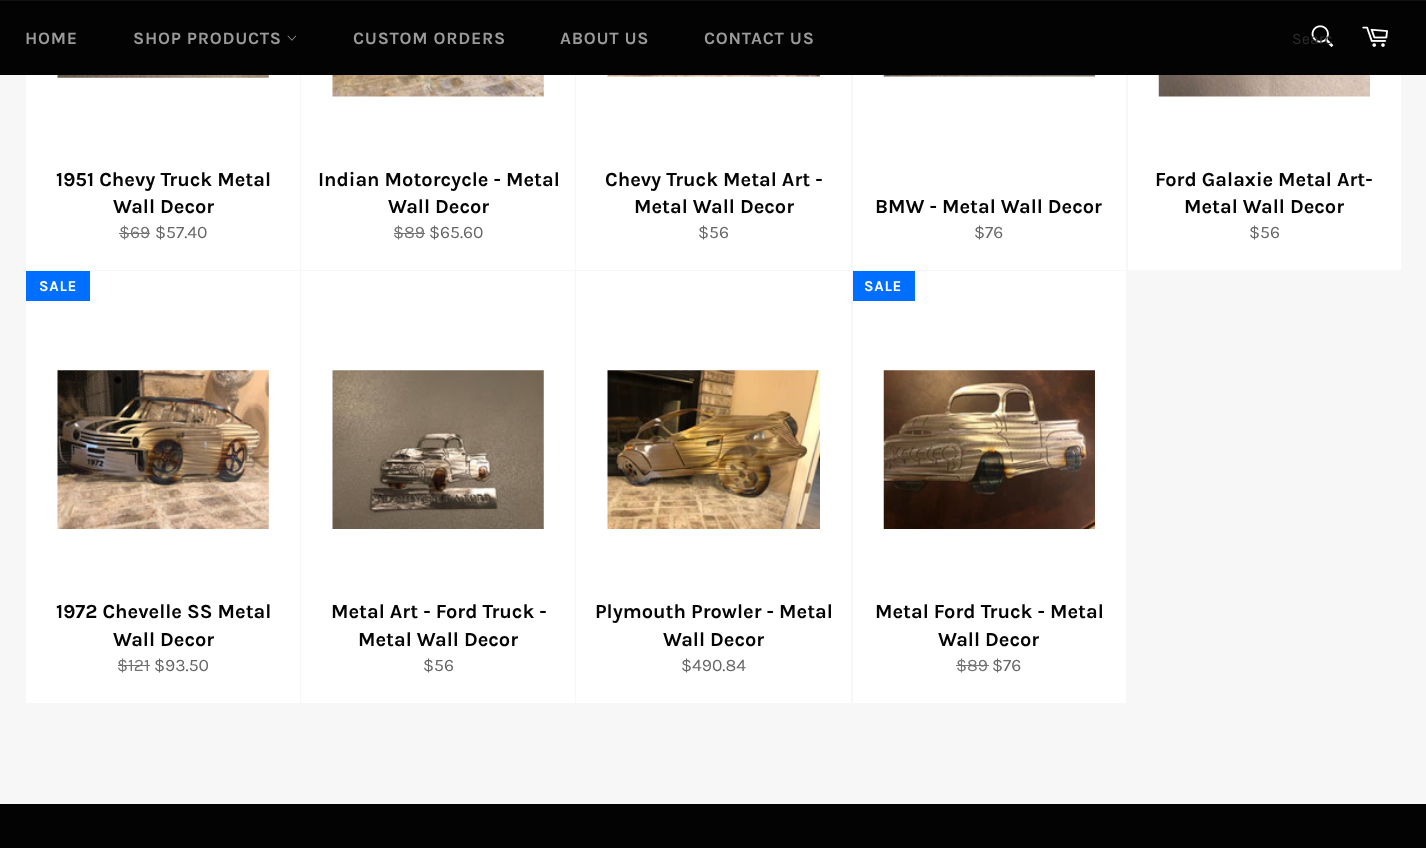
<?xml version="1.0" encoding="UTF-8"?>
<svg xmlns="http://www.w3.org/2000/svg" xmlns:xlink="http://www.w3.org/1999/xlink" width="1426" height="848">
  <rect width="100%" height="100%" fill="#f7f7f7" />
  <rect y="1" width="1426" height="74" fill="#030303" />
  <rect width="1426" height="1" fill="#101010" />
  <image x="287" y="35" width="10" height="6" xlink:href="image1.png" />
  <image x="1311" y="25" width="23" height="22" xlink:href="image2.png" />
  <image x="1362" y="26" width="26" height="21" xlink:href="image3.png" />
  <rect x="26" y="75" width="274" height="195" fill="#ffffff" />
  <image x="57" y="75" width="212" height="3" xlink:href="image4.png" />
  <rect x="119" y="233" width="31" height="1" fill="#737373" />
  <rect x="301" y="75" width="274" height="195" fill="#ffffff" />
  <image x="332" y="75" width="212" height="22" xlink:href="image5.png" />
  <rect x="394" y="233" width="31" height="1" fill="#737373" />
  <rect x="576" y="75" width="275" height="195" fill="#ffffff" />
  <image x="607" y="75" width="213" height="2" xlink:href="image6.png" />
  <rect x="853" y="75" width="273" height="195" fill="#ffffff" />
  <image x="883" y="75" width="212" height="2" xlink:href="image7.png" />
  <rect x="1128" y="75" width="273" height="195" fill="#ffffff" />
  <image x="1158" y="75" width="212" height="22" xlink:href="image8.png" />
  <rect x="26" y="271" width="274" height="432" fill="#ffffff" />
  <rect x="26" y="271" width="64" height="30" fill="#006eff" />
  <image x="57" y="370" width="212" height="159" xlink:href="image9.png" />
  <rect x="118" y="665" width="32" height="1" fill="#737373" />
  <rect x="301" y="271" width="274" height="432" fill="#ffffff" />
  <image x="332" y="370" width="212" height="159" xlink:href="image10.png" />
  <rect x="576" y="271" width="275" height="432" fill="#ffffff" />
  <image x="607" y="370" width="213" height="159" xlink:href="image11.png" />
  <rect x="853" y="271" width="273" height="432" fill="#ffffff" />
  <rect x="853" y="271" width="62" height="30" fill="#006eff" />
  <image x="883" y="370" width="212" height="159" xlink:href="image12.png" />
  <rect x="956" y="665" width="33" height="1" fill="#737373" />
  <rect y="804" width="1426" height="44" fill="#030303" />
  <text x="25" y="44" style="font-family: Karla; font-size: 17.5px; font-weight: bold; letter-spacing: 0.75px; fill: #9a9a9a">HOME</text>
  <text x="133" y="44" style="font-family: Karla; font-size: 17.5px; font-weight: bold; letter-spacing: 0.75px; fill: #9a9a9a">SHOP PRODUCTS</text>
  <text x="353" y="44" style="font-family: Karla; font-size: 17.5px; font-weight: bold; letter-spacing: 0.75px; fill: #9a9a9a">CUSTOM ORDERS</text>
  <text x="560" y="44" style="font-family: Karla; font-size: 17.5px; font-weight: bold; letter-spacing: 0.75px; fill: #9a9a9a">ABOUT US</text>
  <text x="704" y="44" style="font-family: Karla; font-size: 17.5px; font-weight: bold; letter-spacing: 0.75px; fill: #9a9a9a">CONTACT US</text>
  <text x="1292" y="44" style="font-family: Karla; font-size: 16px; fill: #2d2d2d">Searc</text>
  <text x="56" y="186" style="font-family: Karla; font-size: 20px; font-weight: bold; fill: #030303">1951 Chevy Truck Metal</text>
  <text x="113" y="213" style="font-family: Karla; font-size: 20px; font-weight: bold; fill: #030303">Wall Decor</text>
  <text x="119" y="238" style="font-family: Karla; font-size: 17.5px; fill: #737373">$69</text>
  <text x="155" y="238" style="font-family: Karla; font-size: 17.5px; fill: #666666">$57.40</text>
  <text x="318" y="186" style="font-family: Karla; font-size: 20px; font-weight: bold; fill: #030303">Indian Motorcycle - Metal</text>
  <text x="388" y="213" style="font-family: Karla; font-size: 20px; font-weight: bold; fill: #030303">Wall Decor</text>
  <text x="393" y="238" style="font-family: Karla; font-size: 17.5px; fill: #737373">$89</text>
  <text x="429" y="238" style="font-family: Karla; font-size: 17.5px; fill: #666666">$65.60</text>
  <text x="605" y="186" style="font-family: Karla; font-size: 20px; font-weight: bold; fill: #030303">Chevy Truck Metal Art -</text>
  <text x="634" y="213" style="font-family: Karla; font-size: 20px; font-weight: bold; fill: #030303">Metal Wall Decor</text>
  <text x="698" y="238" style="font-family: Karla; font-size: 17.5px; fill: #666666">$56</text>
  <text x="875" y="213" style="font-family: Karla; font-size: 20px; font-weight: bold; fill: #030303">BMW - Metal Wall Decor</text>
  <text x="974" y="238" style="font-family: Karla; font-size: 17.5px; fill: #666666">$76</text>
  <text x="1155" y="186" style="font-family: Karla; font-size: 20px; font-weight: bold; fill: #030303">Ford Galaxie Metal Art-</text>
  <text x="1184" y="213" style="font-family: Karla; font-size: 20px; font-weight: bold; fill: #030303">Metal Wall Decor</text>
  <text x="1249" y="238" style="font-family: Karla; font-size: 17.5px; fill: #666666">$56</text>
  <text x="39" y="291" style="font-family: Karla; font-size: 15px; font-weight: bold; letter-spacing: 0.75px; fill: #ffffff">SALE</text>
  <text x="56" y="618" style="font-family: Karla; font-size: 20px; font-weight: bold; fill: #030303">1972 Chevelle SS Metal</text>
  <text x="113" y="646" style="font-family: Karla; font-size: 20px; font-weight: bold; fill: #030303">Wall Decor</text>
  <text x="117" y="671" style="font-family: Karla; font-size: 17.5px; fill: #737373">$121</text>
  <text x="154" y="671" style="font-family: Karla; font-size: 17.5px; fill: #666666">$93.50</text>
  <text x="331" y="618" style="font-family: Karla; font-size: 20px; font-weight: bold; fill: #030303">Metal Art - Ford Truck -</text>
  <text x="358" y="646" style="font-family: Karla; font-size: 20px; font-weight: bold; fill: #030303">Metal Wall Decor</text>
  <text x="423" y="671" style="font-family: Karla; font-size: 17.5px; fill: #666666">$56</text>
  <text x="595" y="618" style="font-family: Karla; font-size: 20px; font-weight: bold; fill: #030303">Plymouth Prowler - Metal</text>
  <text x="663" y="646" style="font-family: Karla; font-size: 20px; font-weight: bold; fill: #030303">Wall Decor</text>
  <text x="681" y="671" style="font-family: Karla; font-size: 17.5px; fill: #666666">$490.84</text>
  <text x="864" y="291" style="font-family: Karla; font-size: 15px; font-weight: bold; letter-spacing: 0.75px; fill: #ffffff">SALE</text>
  <text x="875" y="618" style="font-family: Karla; font-size: 20px; font-weight: bold; fill: #030303">Metal Ford Truck - Metal</text>
  <text x="938" y="646" style="font-family: Karla; font-size: 20px; font-weight: bold; fill: #030303">Wall Decor</text>
  <text x="956" y="671" style="font-family: Karla; font-size: 17.5px; fill: #737373">$89</text>
  <text x="992" y="671" style="font-family: Karla; font-size: 17.5px; fill: #666666">$76</text>
</svg>
